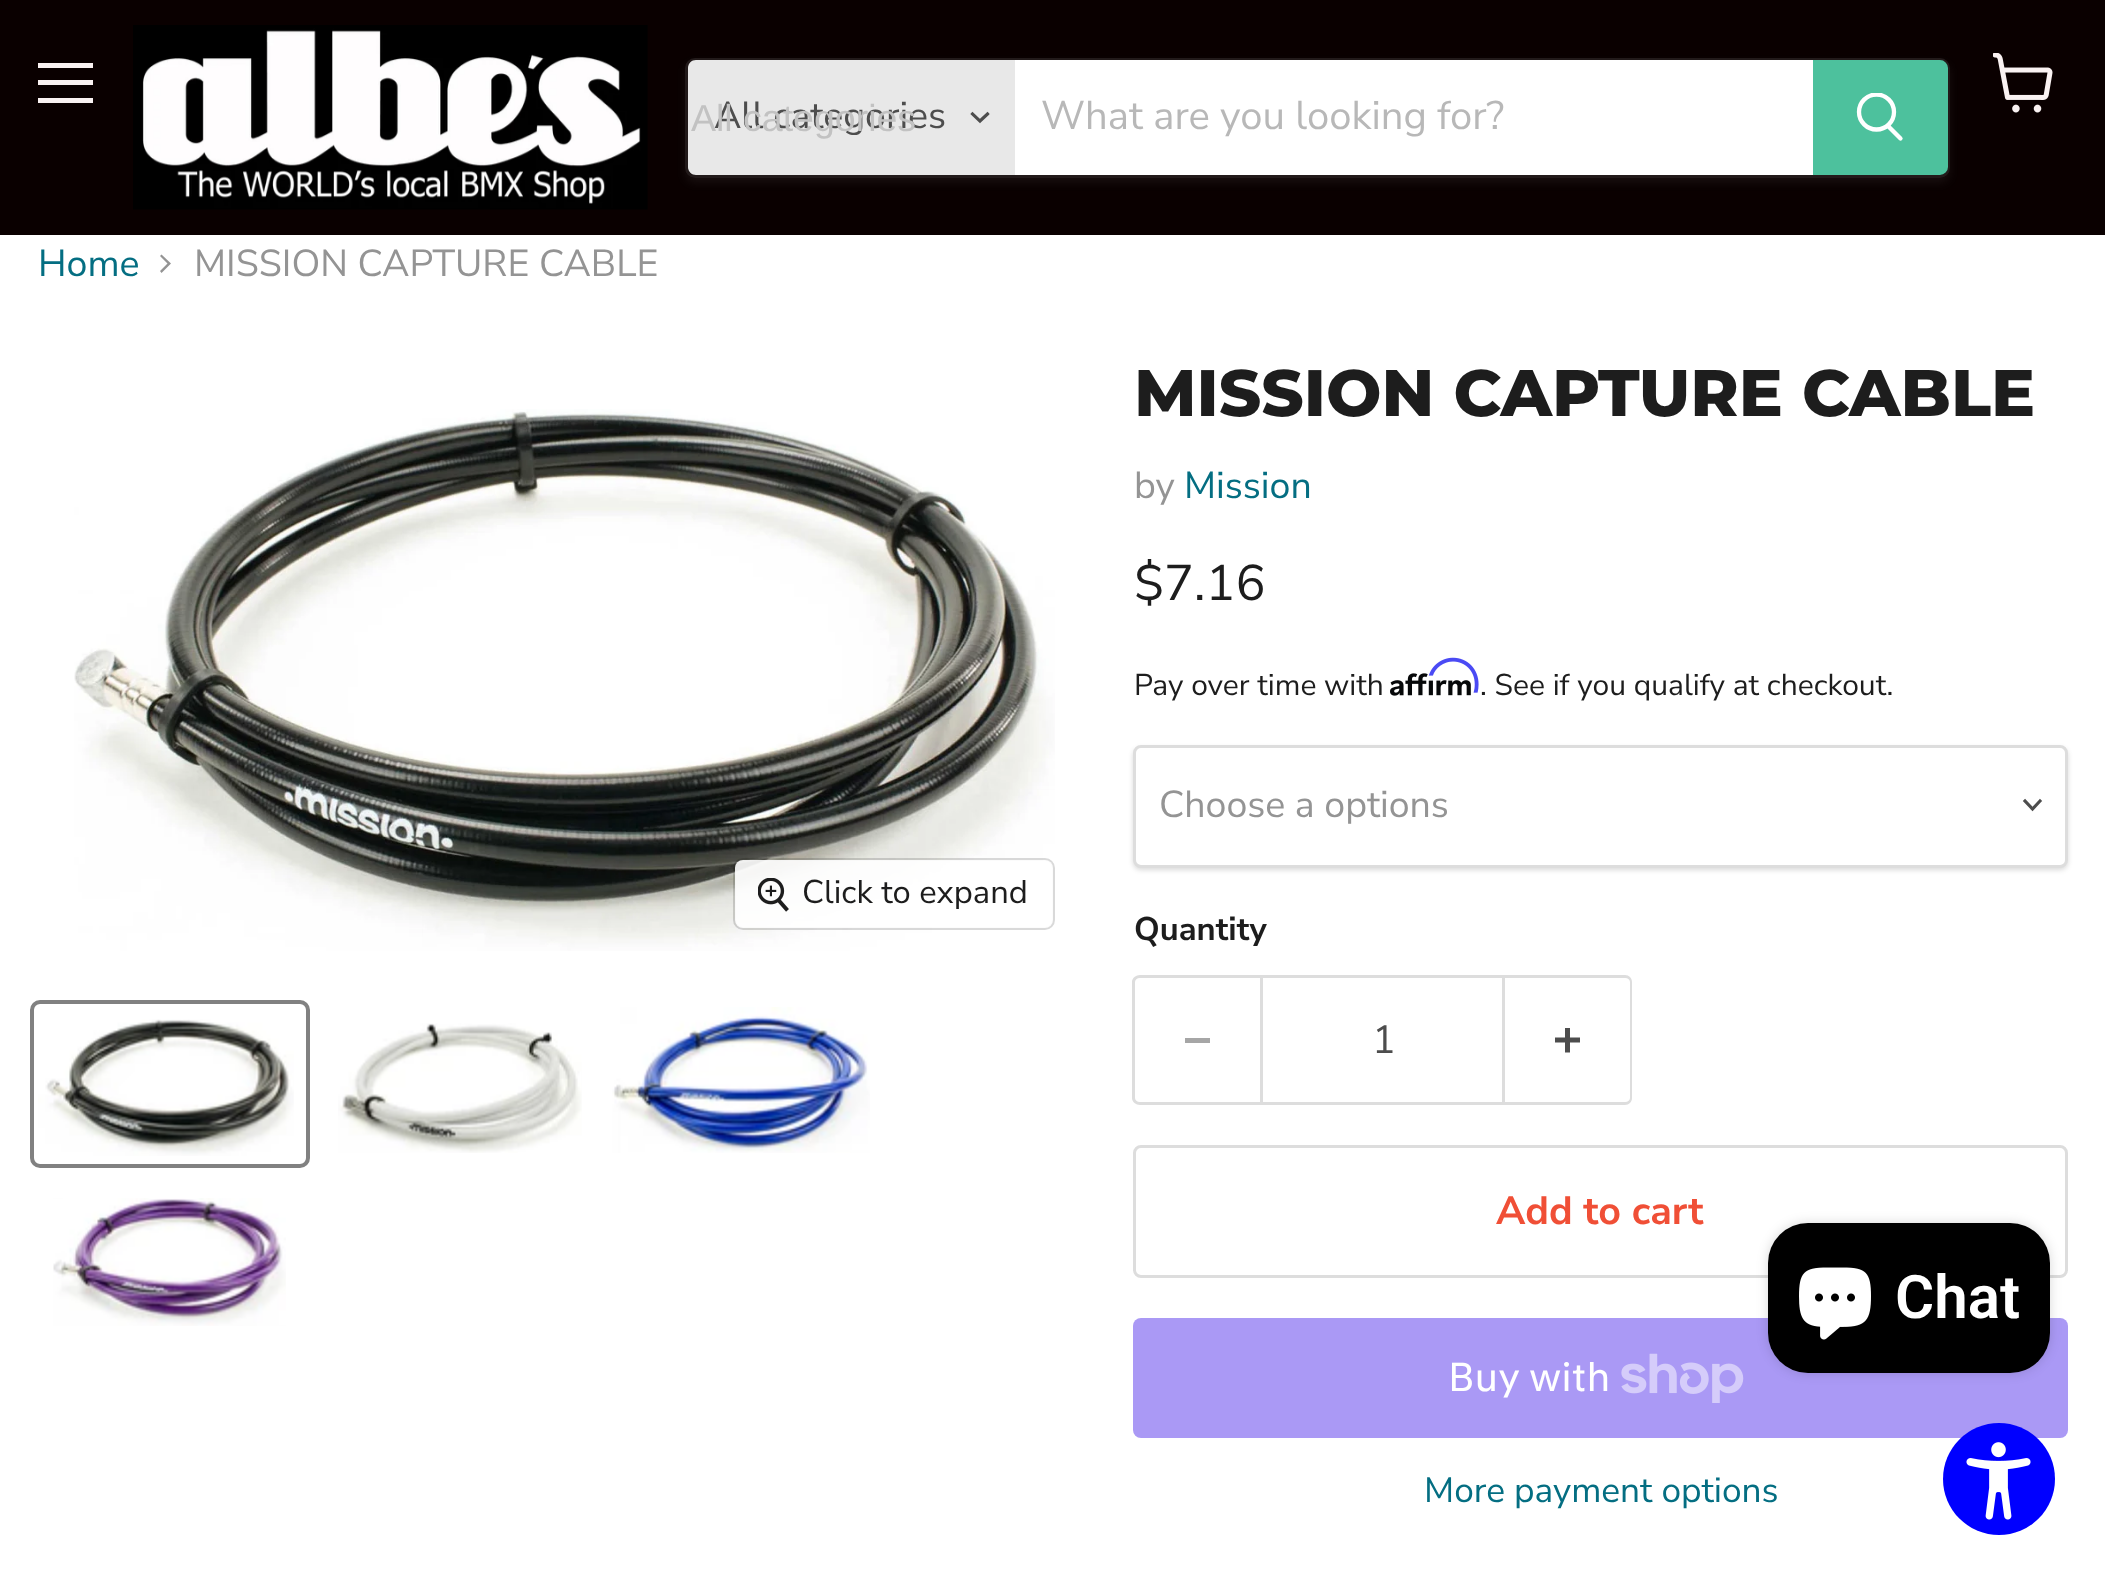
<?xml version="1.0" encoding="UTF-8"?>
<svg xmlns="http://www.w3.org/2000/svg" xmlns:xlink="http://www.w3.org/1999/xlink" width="2105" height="1585">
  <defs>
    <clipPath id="clip1"><path d="M 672 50 h 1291 v 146 h -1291 z m 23 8 h 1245 c 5.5 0 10 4.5 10 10 v 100 c 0 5.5 -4.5 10 -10 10 h -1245 c -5.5 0 -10 -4.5 -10 -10 v -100 c 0 -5.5 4.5 -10 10 -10 z" clip-rule="evenodd" /></clipPath>
    <clipPath id="clip2"><rect x="1855" y="93" width="50" height="52" /></clipPath>
  </defs>
  <rect width="100%" height="100%" fill="#ffffff" />
  <rect width="2105" height="235" fill="#0a0000" />
  <rect x="38" y="63" width="55" height="5" fill="#faf2f2" />
  <rect x="38" y="80" width="55" height="5" fill="#faf2f2" />
  <rect x="38" y="98" width="55" height="5" fill="#faf2f2" />
  <image x="1993" y="53" width="60" height="60" xlink:href="image1.png" />
  <image x="133" y="25" width="515" height="185" xlink:href="image2.png" />
  <g clip-path="url(#clip1)">
    <rect x="685" y="63" width="1265" height="120" rx="10" fill="#808080" fill-opacity="0.11" filter="blur(4px)" />
  </g>
  <rect x="686.5" y="59.5" width="1262" height="117" rx="8.5" fill="none" stroke="#808080" stroke-opacity="0.2" stroke-width="3" />
  <path d="M 696 60 h 319 v 115 h -319 c -4.5 0 -8 -3.5 -8 -8 v -99 c 0 -4.5 3.5 -8 8 -8 z" fill="#e8e8e8" />
  <path d="M 980 121 l 7.5 -7 m -7.5 7 l -7.5 -7" fill="none" stroke="#4d4d4d" stroke-width="3.1" stroke-linecap="square" />
  <rect x="1015" y="60" width="798" height="115" fill="#ffffff" />
  <path d="M 1814.5 61.5 h 125.5 c 3.5 0 6.5 3 6.5 6.5 v 99 c 0 3.5 -3 6.5 -6.5 6.5 h -125.5 z" fill="#4dc19d" stroke="#4dc19d" stroke-width="3" />
  <path d="M 1900.5 138.5 l -12 -12" fill="none" stroke="#ffffff" stroke-width="4.3" stroke-linecap="round" />
  <g clip-path="url(#clip2)">
    <circle cx="1876.5" cy="112" r="17.5" fill="none" stroke="#ffffff" stroke-width="4.3" />
  </g>
  <path d="M 160 271 l 1.5 2 l 9.5 -9.5 l -9.5 -9 l -1.5 1.5 l 7.5 7.5 z" fill="#949494" fill-rule="evenodd" />
  <image x="74" y="409" width="981" height="542" xlink:href="image3.png" />
  <rect x="734.5" y="859.5" width="319" height="69" rx="8.5" fill="none" stroke="#000000" stroke-opacity="0.15" stroke-width="3" />
  <rect x="735" y="860" width="318" height="68" rx="8" fill="#ffffff" fill-opacity="0.9" />
  <image x="758" y="878" width="31" height="34" xlink:href="image4.png" />
  <rect x="32" y="1002" width="276" height="164" rx="8" fill="none" stroke="#818181" stroke-width="4" />
  <image x="38" y="1019" width="256" height="137" xlink:href="image5.png" />
  <image x="338" y="1023" width="244" height="130" xlink:href="image6.png" />
  <image x="612" y="1007" width="258" height="146" xlink:href="image7.png" />
  <image x="53" y="1198" width="233" height="128" xlink:href="image8.png" />
  <image x="1390" y="673" width="81" height="23" xlink:href="image10.png" />
  <image x="1428" y="657" width="51" height="36" xlink:href="image9.png" />
  <rect x="1133" y="748" width="935" height="122" rx="8" fill="#000000" fill-opacity="0.15" filter="blur(2.5px)" />
  <rect x="1134.5" y="746.5" width="932" height="120" rx="6.5" fill="#ffffff" stroke="#dddddd" stroke-width="3" />
  <path d="M 2032.5 809 l 7.5 -8 m -7.5 8 l -7.5 -8" fill="none" stroke="#4d4d4d" stroke-width="3.1" stroke-linecap="square" />
  <path d="M 1140 975 h 120 v 130 h -120 c -4 0 -8 -3 -8 -7 v -116 c 0 -4 4 -7 8 -7 z m 0 3 h 120 v 124 h -120 c -3 0 -5 -2 -5 -4 v -116 c 0 -2 2 -4 5 -4 z" fill="#dddddd" fill-rule="evenodd" />
  <rect x="1185" y="1038" width="25" height="5" fill="#a6a6a6" />
  <rect x="1261.5" y="976.5" width="242" height="127" fill="none" stroke="#dddddd" stroke-width="3" />
  <path d="M 1505 975 h 120 c 4 0 7 3 7 7 v 116 c 0 4 -3 7 -7 7 h -120 z m 0 3 h 120 c 3 0 5 2 5 4 v 116 c 0 2 -2 4 -5 4 h -120 z" fill="#dddddd" fill-rule="evenodd" />
  <image x="1555" y="1028" width="25" height="25" xlink:href="image11.png" />
  <rect x="1134.5" y="1146.5" width="932" height="130" rx="6.5" fill="none" stroke="#dddddd" stroke-width="3" />
  <rect x="1133" y="1318" width="935" height="120" rx="8" fill="#aa99f5" />
  <image x="1621" y="1353" width="123" height="50" xlink:href="image12.png" />
  <rect x="1768" y="1223" width="282" height="150" rx="40" fill="#000000" fill-opacity="0.15" filter="blur(6px)" />
  <rect x="1768" y="1223" width="282" height="150" rx="40" fill="#000000" />
  <image x="1799" y="1267" width="72" height="73" xlink:href="image13.png" />
  <circle cx="1999" cy="1479" r="56" fill="#0000ff" />
  <image x="1966" y="1442" width="65" height="78" xlink:href="image14.png" />
  <text x="714" y="128" style="font-family: Nunito Sans; font-size: 37.5px; fill: #4d4d4d">All categories</text>
  <text x="691" y="131" style="font-family: Liberation Sans; font-size: 37.5px; fill: #c2c2c2">All categories</text>
  <text x="1041" y="129" style="font-family: Nunito Sans; font-size: 40px; fill: #b8b8b8">What are you looking for?</text>
  <text x="38" y="276" style="font-family: Nunito Sans; font-size: 37.5px; fill: #046e82">Home</text>
  <text x="194" y="276" style="font-family: Nunito Sans; font-size: 37.5px; fill: #949494">MISSION CAPTURE CABLE</text>
  <text x="802" y="903" style="font-family: Nunito Sans; font-size: 32.75px; fill: #1d1d1d">Click to expand</text>
  <text x="1134" y="416" style="font-family: Montserrat; font-size: 65.6px; font-weight: 800; fill: #1d1d1d">MISSION CAPTURE CABLE</text>
  <text x="1134" y="498" style="font-family: Nunito Sans; font-size: 37.5px; fill: #949494">by</text>
  <text x="1184" y="498" style="font-family: Nunito Sans; font-size: 37.5px; fill: #046e82">Mission</text>
  <text x="1134" y="600" style="font-family: Nunito Sans; font-size: 50px; fill: #1d1d1d">$7.16</text>
  <text x="1134" y="695" style="font-family: Nunito Sans; font-size: 30px; fill: #1d1d1d">Pay over time with</text>
  <text x="1480" y="695" style="font-family: Nunito Sans; font-size: 30px; fill: #1d1d1d">. See if you qualify at checkout.</text>
  <text x="1159" y="817" style="font-family: Nunito Sans; font-size: 37.5px; fill: #949494">Choose a options</text>
  <text x="1134" y="940" style="font-family: Nunito Sans; font-size: 32.75px; font-weight: bold; fill: #1d1d1d">Quantity</text>
  <text x="1372" y="1053" style="font-family: Nunito Sans; font-size: 39.5px; fill: #4d4d4d">1</text>
  <text x="1496" y="1224" style="font-family: Nunito Sans; font-size: 39.5px; font-weight: bold; fill: #f04f36">Add to cart</text>
  <text x="1448" y="1391" style="font-family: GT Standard; font-size: 40px; fill: #ffffff">Buy with</text>
  <text x="1424" y="1502" style="font-family: Nunito Sans; font-size: 35.25px; fill: #046e82">More payment options</text>
  <text x="1895" y="1318" style="font-family: Roboto; font-size: 60px; font-weight: 600; fill: #ffffff">Chat</text>
</svg>
